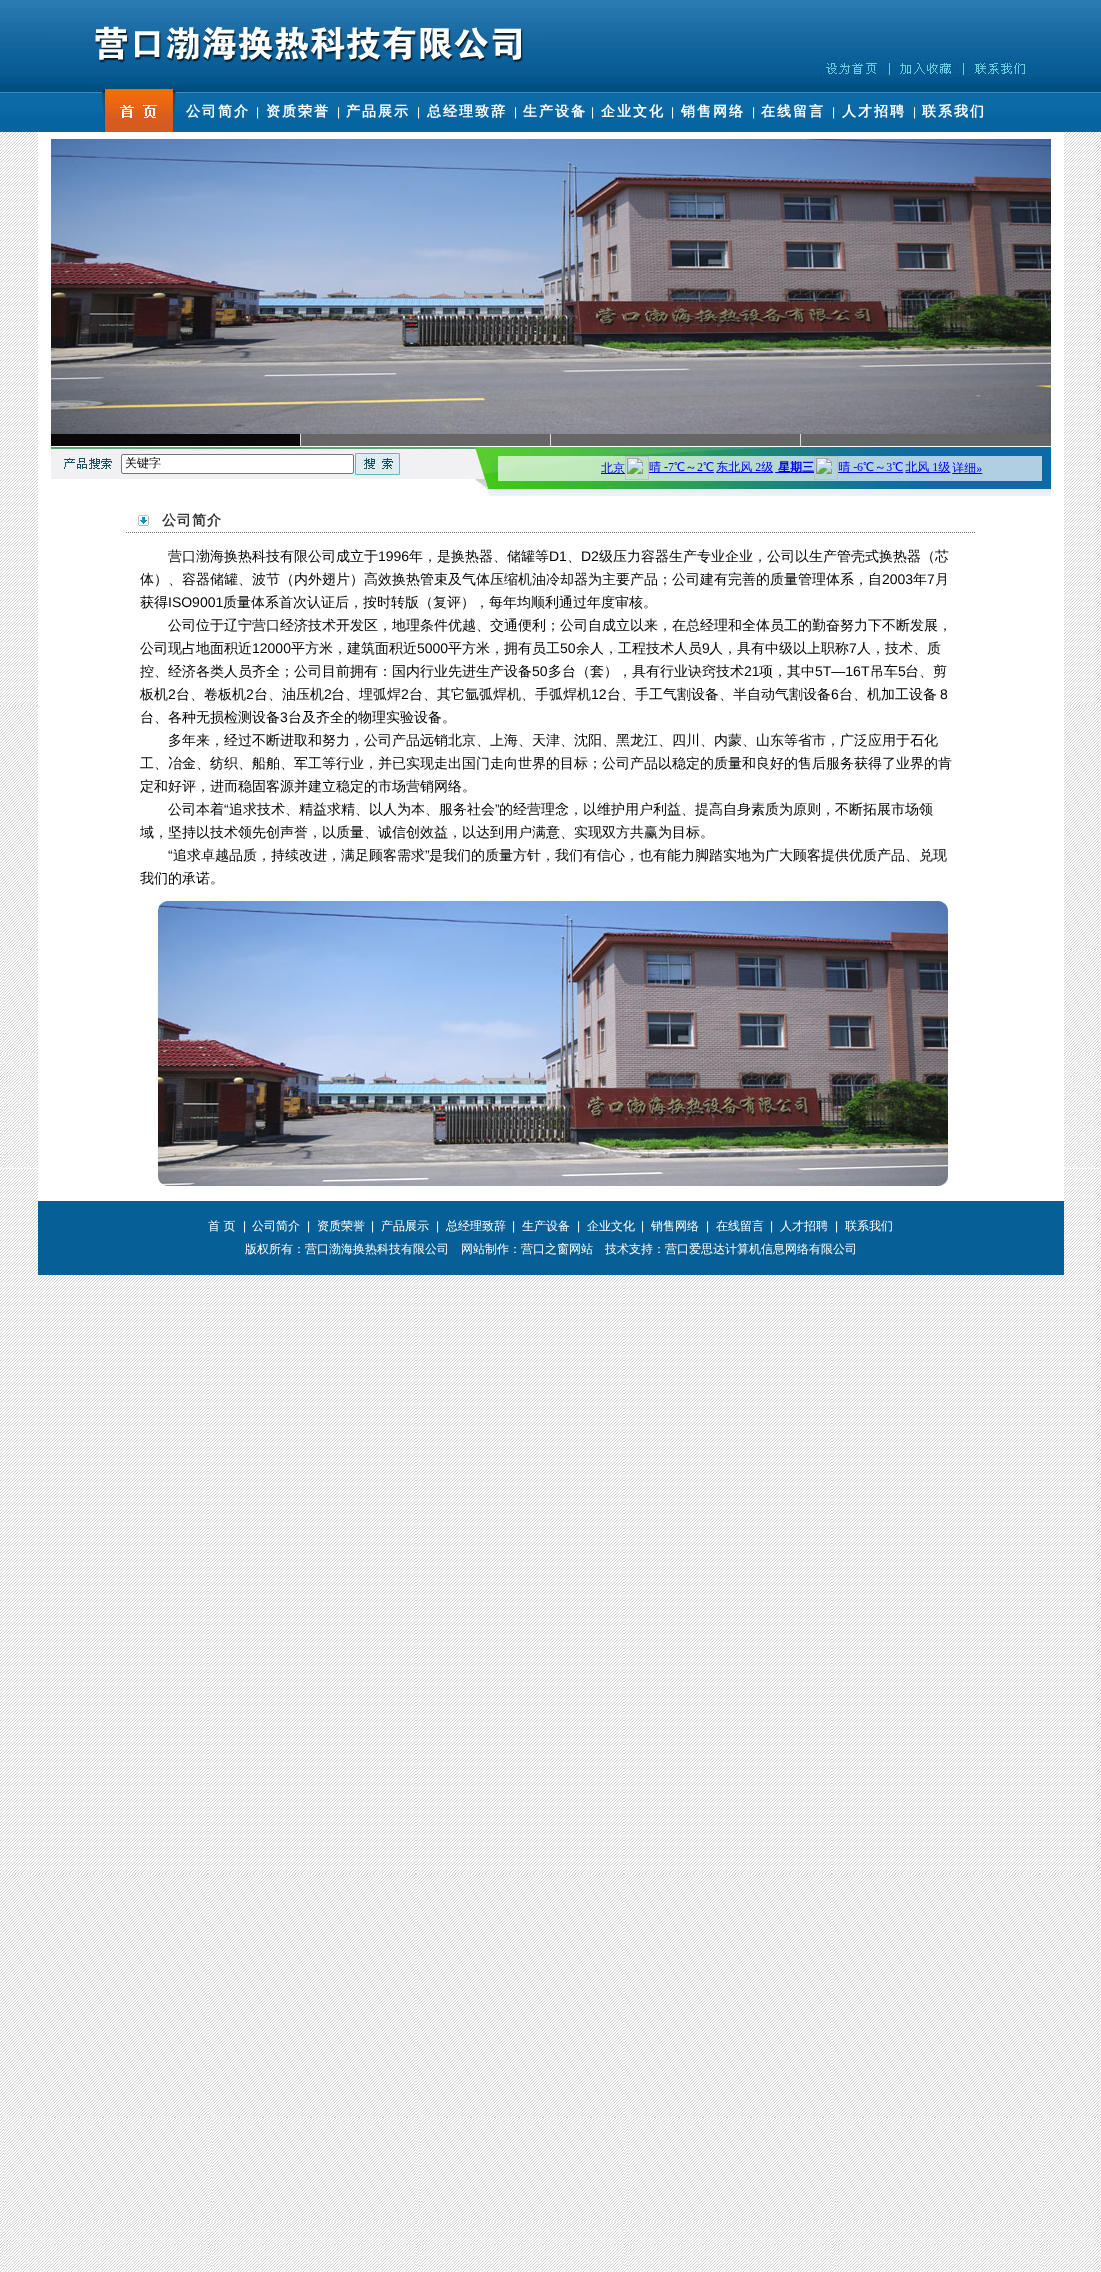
<?xml version="1.0" encoding="UTF-8"?>
<svg xmlns="http://www.w3.org/2000/svg" xmlns:xlink="http://www.w3.org/1999/xlink" width="1101" height="2272">
  <rect width="100%" height="100%" fill="#ffffff" />
  <image x="0" y="132" width="1101" height="2140" xlink:href="image1.png" />
  <image x="0" y="0" width="1101" height="132" xlink:href="image2.png" />
  <image x="51" y="24" width="491" height="62" xlink:href="image3.png" />
  <image x="821" y="56" width="71" height="30" xlink:href="image4.png" />
  <image x="892" y="56" width="74" height="30" xlink:href="image5.png" />
  <image x="966" y="56" width="85" height="30" xlink:href="image6.png" />
  <image x="94" y="86" width="92" height="46" xlink:href="image7.png" />
  <rect x="38" y="132" width="1026" height="1069" fill="#ffffff" />
  <image x="51" y="139" width="1000" height="295" xlink:href="image8.png" />
  <rect x="301" y="434" width="750" height="12" fill="#666666" />
  <rect x="51" y="434" width="249" height="12" fill="#090909" />
  <rect x="300" y="434" width="1" height="12" fill="#dddddd" />
  <rect x="550" y="434" width="1" height="12" fill="#dddddd" />
  <rect x="800" y="434" width="1" height="12" fill="#dddddd" />
  <image x="51" y="447" width="70" height="32" xlink:href="image9.png" />
  <image x="121" y="446" width="350" height="33" xlink:href="image10.png" />
  <rect x="121.5" y="454.5" width="232" height="19" rx="1.5" fill="#ffffff" stroke="#767676" />
  <image x="354" y="453" width="47" height="22" xlink:href="image11.png" />
  <image x="471" y="446" width="580" height="50" xlink:href="image12.png" />
  <image x="601" y="456" width="382" height="24" xlink:href="image13.png" />
  <path d="M 126 532.5 h 850" fill="none" stroke="#6c777d" stroke-dasharray="1 1" />
  <image x="138" y="515" width="11" height="11" xlink:href="image14.png" />
  <image x="156" y="898" width="792" height="288" xlink:href="image15.png" />
  <rect x="38" y="1201" width="1026" height="74" fill="#065f97" />
  <text x="186" y="116" style="font-family: WenQuanYi Zen Hei; font-size: 14px; font-weight: bold; letter-spacing: 2px; fill: #ffffff">公司简介</text>
  <text x="256" y="116" style="font-family: Liberation Sans; font-size: 12px; fill: #ffffff">|</text>
  <text x="266" y="116" style="font-family: WenQuanYi Zen Hei; font-size: 14px; font-weight: bold; letter-spacing: 2px; fill: #ffffff">资质荣誉</text>
  <text x="337" y="116" style="font-family: Liberation Sans; font-size: 12px; fill: #ffffff">|</text>
  <text x="346" y="116" style="font-family: WenQuanYi Zen Hei; font-size: 14px; font-weight: bold; letter-spacing: 2px; fill: #ffffff">产品展示</text>
  <text x="417" y="116" style="font-family: Liberation Sans; font-size: 12px; fill: #ffffff">|</text>
  <text x="427" y="116" style="font-family: WenQuanYi Zen Hei; font-size: 14px; font-weight: bold; letter-spacing: 2px; fill: #ffffff">总经理致辞</text>
  <text x="514" y="116" style="font-family: Liberation Sans; font-size: 12px; fill: #ffffff">|</text>
  <text x="523" y="116" style="font-family: WenQuanYi Zen Hei; font-size: 14px; font-weight: bold; letter-spacing: 2px; fill: #ffffff">生产设备</text>
  <text x="591" y="116" style="font-family: Liberation Sans; font-size: 12px; fill: #ffffff">|</text>
  <text x="601" y="116" style="font-family: WenQuanYi Zen Hei; font-size: 14px; font-weight: bold; letter-spacing: 2px; fill: #ffffff">企业文化</text>
  <text x="671" y="116" style="font-family: Liberation Sans; font-size: 12px; fill: #ffffff">|</text>
  <text x="681" y="116" style="font-family: WenQuanYi Zen Hei; font-size: 14px; font-weight: bold; letter-spacing: 2px; fill: #ffffff">销售网络</text>
  <text x="752" y="116" style="font-family: Liberation Sans; font-size: 12px; fill: #ffffff">|</text>
  <text x="761" y="116" style="font-family: WenQuanYi Zen Hei; font-size: 14px; font-weight: bold; letter-spacing: 2px; fill: #ffffff">在线留言</text>
  <text x="832" y="116" style="font-family: Liberation Sans; font-size: 12px; fill: #ffffff">|</text>
  <text x="842" y="116" style="font-family: WenQuanYi Zen Hei; font-size: 14px; font-weight: bold; letter-spacing: 2px; fill: #ffffff">人才招聘</text>
  <text x="913" y="116" style="font-family: Liberation Sans; font-size: 12px; fill: #ffffff">|</text>
  <text x="922" y="116" style="font-family: WenQuanYi Zen Hei; font-size: 14px; font-weight: bold; letter-spacing: 2px; fill: #ffffff">联系我们</text>
  <text x="125" y="467" style="font-family: WenQuanYi Zen Hei; font-size: 12px; font-weight: 500; fill: #000000">关键字</text>
  <text x="162" y="525" style="font-family: WenQuanYi Zen Hei; font-size: 14px; font-weight: bold; letter-spacing: 1px; fill: #333333">公司简介</text>
  <text x="168" y="561" style="font-family: WenQuanYi Zen Hei; font-size: 14px; font-weight: 500; fill: #000000">营口渤海换热科技有限公司成立于</text>
  <text x="378" y="561" style="font-family: Liberation Sans; font-size: 14px; fill: #000000">1996</text>
  <text x="409" y="561" style="font-family: WenQuanYi Zen Hei; font-size: 14px; font-weight: 500; fill: #000000">年，是换热器、储罐等</text>
  <text x="549" y="561" style="font-family: Liberation Sans; font-size: 14px; fill: #000000">D1</text>
  <text x="567" y="561" style="font-family: WenQuanYi Zen Hei; font-size: 14px; font-weight: 500; fill: #000000">、</text>
  <text x="581" y="561" style="font-family: Liberation Sans; font-size: 14px; fill: #000000">D2</text>
  <text x="599" y="561" style="font-family: WenQuanYi Zen Hei; font-size: 14px; font-weight: 500; fill: #000000">级压力容器生产专业企业，公司以生产管壳式换热器（芯</text>
  <text x="140" y="584" style="font-family: WenQuanYi Zen Hei; font-size: 14px; font-weight: 500; fill: #000000">体）、容器储罐、波节（内外翅片）高效换热管束及气体压缩机油冷却器为主要产品；公司建有完善的质量管理体系，自</text>
  <text x="882" y="584" style="font-family: Liberation Sans; font-size: 14px; fill: #000000">2003</text>
  <text x="913" y="584" style="font-family: WenQuanYi Zen Hei; font-size: 14px; font-weight: 500; fill: #000000">年</text>
  <text x="927" y="584" style="font-family: Liberation Sans; font-size: 14px; fill: #000000">7</text>
  <text x="935" y="584" style="font-family: WenQuanYi Zen Hei; font-size: 14px; font-weight: 500; fill: #000000">月</text>
  <text x="140" y="607" style="font-family: WenQuanYi Zen Hei; font-size: 14px; font-weight: 500; fill: #000000">获得</text>
  <text x="168" y="607" style="font-family: Liberation Sans; font-size: 14px; fill: #000000">ISO9001</text>
  <text x="223" y="607" style="font-family: WenQuanYi Zen Hei; font-size: 14px; font-weight: 500; fill: #000000">质量体系首次认证后，按时转版（复评），每年均顺利通过年度审核。</text>
  <text x="168" y="630" style="font-family: WenQuanYi Zen Hei; font-size: 14px; font-weight: 500; fill: #000000">公司位于辽宁营口经济技术开发区，地理条件优越、交通便利；公司自成立以来，在总经理和全体员工的勤奋努力下不断发展，</text>
  <text x="140" y="653" style="font-family: WenQuanYi Zen Hei; font-size: 14px; font-weight: 500; fill: #000000">公司现占地面积近</text>
  <text x="252" y="653" style="font-family: Liberation Sans; font-size: 14px; fill: #000000">12000</text>
  <text x="291" y="653" style="font-family: WenQuanYi Zen Hei; font-size: 14px; font-weight: 500; fill: #000000">平方米，建筑面积近</text>
  <text x="417" y="653" style="font-family: Liberation Sans; font-size: 14px; fill: #000000">5000</text>
  <text x="448" y="653" style="font-family: WenQuanYi Zen Hei; font-size: 14px; font-weight: 500; fill: #000000">平方米，拥有员工</text>
  <text x="560" y="653" style="font-family: Liberation Sans; font-size: 14px; fill: #000000">50</text>
  <text x="576" y="653" style="font-family: WenQuanYi Zen Hei; font-size: 14px; font-weight: 500; fill: #000000">余人，工程技术人员</text>
  <text x="702" y="653" style="font-family: Liberation Sans; font-size: 14px; fill: #000000">9</text>
  <text x="709" y="653" style="font-family: WenQuanYi Zen Hei; font-size: 14px; font-weight: 500; fill: #000000">人，具有中级以上职称</text>
  <text x="849" y="653" style="font-family: Liberation Sans; font-size: 14px; fill: #000000">7</text>
  <text x="857" y="653" style="font-family: WenQuanYi Zen Hei; font-size: 14px; font-weight: 500; fill: #000000">人，技术、质</text>
  <text x="140" y="676" style="font-family: WenQuanYi Zen Hei; font-size: 14px; font-weight: 500; fill: #000000">控、经济各类人员齐全；公司目前拥有：国内行业先进生产设备</text>
  <text x="532" y="676" style="font-family: Liberation Sans; font-size: 14px; fill: #000000">50</text>
  <text x="548" y="676" style="font-family: WenQuanYi Zen Hei; font-size: 14px; font-weight: 500; fill: #000000">多台（套），具有行业诀窍技术</text>
  <text x="744" y="676" style="font-family: Liberation Sans; font-size: 14px; fill: #000000">21</text>
  <text x="759" y="676" style="font-family: WenQuanYi Zen Hei; font-size: 14px; font-weight: 500; fill: #000000">项，其中</text>
  <text x="815" y="676" style="font-family: Liberation Sans; font-size: 14px; fill: #000000">5T—16T</text>
  <text x="870" y="676" style="font-family: WenQuanYi Zen Hei; font-size: 14px; font-weight: 500; fill: #000000">吊车</text>
  <text x="898" y="676" style="font-family: Liberation Sans; font-size: 14px; fill: #000000">5</text>
  <text x="905" y="676" style="font-family: WenQuanYi Zen Hei; font-size: 14px; font-weight: 500; fill: #000000">台、剪</text>
  <text x="140" y="699" style="font-family: WenQuanYi Zen Hei; font-size: 14px; font-weight: 500; fill: #000000">板机</text>
  <text x="168" y="699" style="font-family: Liberation Sans; font-size: 14px; fill: #000000">2</text>
  <text x="176" y="699" style="font-family: WenQuanYi Zen Hei; font-size: 14px; font-weight: 500; fill: #000000">台、卷板机</text>
  <text x="246" y="699" style="font-family: Liberation Sans; font-size: 14px; fill: #000000">2</text>
  <text x="254" y="699" style="font-family: WenQuanYi Zen Hei; font-size: 14px; font-weight: 500; fill: #000000">台、油压机</text>
  <text x="324" y="699" style="font-family: Liberation Sans; font-size: 14px; fill: #000000">2</text>
  <text x="331" y="699" style="font-family: WenQuanYi Zen Hei; font-size: 14px; font-weight: 500; fill: #000000">台、埋弧焊</text>
  <text x="401" y="699" style="font-family: Liberation Sans; font-size: 14px; fill: #000000">2</text>
  <text x="409" y="699" style="font-family: WenQuanYi Zen Hei; font-size: 14px; font-weight: 500; fill: #000000">台、其它氩弧焊机、手弧焊机</text>
  <text x="591" y="699" style="font-family: Liberation Sans; font-size: 14px; fill: #000000">12</text>
  <text x="607" y="699" style="font-family: WenQuanYi Zen Hei; font-size: 14px; font-weight: 500; fill: #000000">台、手工气割设备、半自动气割设备</text>
  <text x="831" y="699" style="font-family: Liberation Sans; font-size: 14px; fill: #000000">6</text>
  <text x="839" y="699" style="font-family: WenQuanYi Zen Hei; font-size: 14px; font-weight: 500; fill: #000000">台、机加工设备</text>
  <text x="940" y="699" style="font-family: Liberation Sans; font-size: 14px; fill: #000000">8</text>
  <text x="140" y="722" style="font-family: WenQuanYi Zen Hei; font-size: 14px; font-weight: 500; fill: #000000">台、各种无损检测设备</text>
  <text x="280" y="722" style="font-family: Liberation Sans; font-size: 14px; fill: #000000">3</text>
  <text x="288" y="722" style="font-family: WenQuanYi Zen Hei; font-size: 14px; font-weight: 500; fill: #000000">台及齐全的物理实验设备。</text>
  <text x="168" y="745" style="font-family: WenQuanYi Zen Hei; font-size: 14px; font-weight: 500; fill: #000000">多年来，经过不断进取和努力，公司产品远销北京、上海、天津、沈阳、黑龙江、四川、内蒙、山东等省市，广泛应用于石化</text>
  <text x="140" y="768" style="font-family: WenQuanYi Zen Hei; font-size: 14px; font-weight: 500; fill: #000000">工、冶金、纺织、船舶、军工等行业，并已实现走出国门走向世界的目标；公司产品以稳定的质量和良好的售后服务获得了业界的肯</text>
  <text x="140" y="791" style="font-family: WenQuanYi Zen Hei; font-size: 14px; font-weight: 500; fill: #000000">定和好评，进而稳固客源并建立稳定的市场营销网络。</text>
  <text x="168" y="814" style="font-family: WenQuanYi Zen Hei; font-size: 14px; font-weight: 500; fill: #000000">公司本着</text>
  <text x="224" y="814" style="font-family: Liberation Sans; font-size: 14px; fill: #000000">“</text>
  <text x="229" y="814" style="font-family: WenQuanYi Zen Hei; font-size: 14px; font-weight: 500; fill: #000000">追求技术、精益求精、以人为本、服务社会</text>
  <text x="495" y="814" style="font-family: Liberation Sans; font-size: 14px; fill: #000000">”</text>
  <text x="499" y="814" style="font-family: WenQuanYi Zen Hei; font-size: 14px; font-weight: 500; fill: #000000">的经营理念，以维护用户利益、提高自身素质为原则，不断拓展市场领</text>
  <text x="140" y="837" style="font-family: WenQuanYi Zen Hei; font-size: 14px; font-weight: 500; fill: #000000">域，坚持以技术领先创声誉，以质量、诚信创效益，以达到用户满意、实现双方共赢为目标。</text>
  <text x="168" y="860" style="font-family: Liberation Sans; font-size: 14px; fill: #000000">“</text>
  <text x="173" y="860" style="font-family: WenQuanYi Zen Hei; font-size: 14px; font-weight: 500; fill: #000000">追求卓越品质，持续改进，满足顾客需求</text>
  <text x="425" y="860" style="font-family: Liberation Sans; font-size: 14px; fill: #000000">”</text>
  <text x="429" y="860" style="font-family: WenQuanYi Zen Hei; font-size: 14px; font-weight: 500; fill: #000000">是我们的质量方针，我们有信心，也有能力脚踏实地为广大顾客提供优质产品、兑现</text>
  <text x="140" y="883" style="font-family: WenQuanYi Zen Hei; font-size: 14px; font-weight: 500; fill: #000000">我们的承诺。</text>
  <text x="208" y="1230" style="font-family: WenQuanYi Zen Hei; font-size: 12px; font-weight: 500; fill: #ffffff">首 页</text>
  <text x="243" y="1230" style="font-family: Liberation Sans; font-size: 12px; fill: #ffffff">|</text>
  <text x="252" y="1230" style="font-family: WenQuanYi Zen Hei; font-size: 12px; font-weight: 500; fill: #ffffff">公司简介</text>
  <text x="307" y="1230" style="font-family: Liberation Sans; font-size: 12px; fill: #ffffff">|</text>
  <text x="317" y="1230" style="font-family: WenQuanYi Zen Hei; font-size: 12px; font-weight: 500; fill: #ffffff">资质荣誉</text>
  <text x="371" y="1230" style="font-family: Liberation Sans; font-size: 12px; fill: #ffffff">|</text>
  <text x="381" y="1230" style="font-family: WenQuanYi Zen Hei; font-size: 12px; font-weight: 500; fill: #ffffff">产品展示</text>
  <text x="436" y="1230" style="font-family: Liberation Sans; font-size: 12px; fill: #ffffff">|</text>
  <text x="446" y="1230" style="font-family: WenQuanYi Zen Hei; font-size: 12px; font-weight: 500; fill: #ffffff">总经理致辞</text>
  <text x="512" y="1230" style="font-family: Liberation Sans; font-size: 12px; fill: #ffffff">|</text>
  <text x="522" y="1230" style="font-family: WenQuanYi Zen Hei; font-size: 12px; font-weight: 500; fill: #ffffff">生产设备</text>
  <text x="577" y="1230" style="font-family: Liberation Sans; font-size: 12px; fill: #ffffff">|</text>
  <text x="587" y="1230" style="font-family: WenQuanYi Zen Hei; font-size: 12px; font-weight: 500; fill: #ffffff">企业文化</text>
  <text x="641" y="1230" style="font-family: Liberation Sans; font-size: 12px; fill: #ffffff">|</text>
  <text x="651" y="1230" style="font-family: WenQuanYi Zen Hei; font-size: 12px; font-weight: 500; fill: #ffffff">销售网络</text>
  <text x="706" y="1230" style="font-family: Liberation Sans; font-size: 12px; fill: #ffffff">|</text>
  <text x="716" y="1230" style="font-family: WenQuanYi Zen Hei; font-size: 12px; font-weight: 500; fill: #ffffff">在线留言</text>
  <text x="770" y="1230" style="font-family: Liberation Sans; font-size: 12px; fill: #ffffff">|</text>
  <text x="780" y="1230" style="font-family: WenQuanYi Zen Hei; font-size: 12px; font-weight: 500; fill: #ffffff">人才招聘</text>
  <text x="835" y="1230" style="font-family: Liberation Sans; font-size: 12px; fill: #ffffff">|</text>
  <text x="845" y="1230" style="font-family: WenQuanYi Zen Hei; font-size: 12px; font-weight: 500; fill: #ffffff">联系我们</text>
  <text x="245" y="1253" style="font-family: WenQuanYi Zen Hei; font-size: 12px; font-weight: 500; fill: #ffffff">版权所有：营口渤海换热科技有限公司</text>
  <text x="461" y="1253" style="font-family: WenQuanYi Zen Hei; font-size: 12px; font-weight: 500; fill: #ffffff">网站制作：营口之窗网站</text>
  <text x="605" y="1253" style="font-family: WenQuanYi Zen Hei; font-size: 12px; font-weight: 500; fill: #ffffff">技术支持：营口爱思达计算机信息网络有限公司</text>
</svg>
